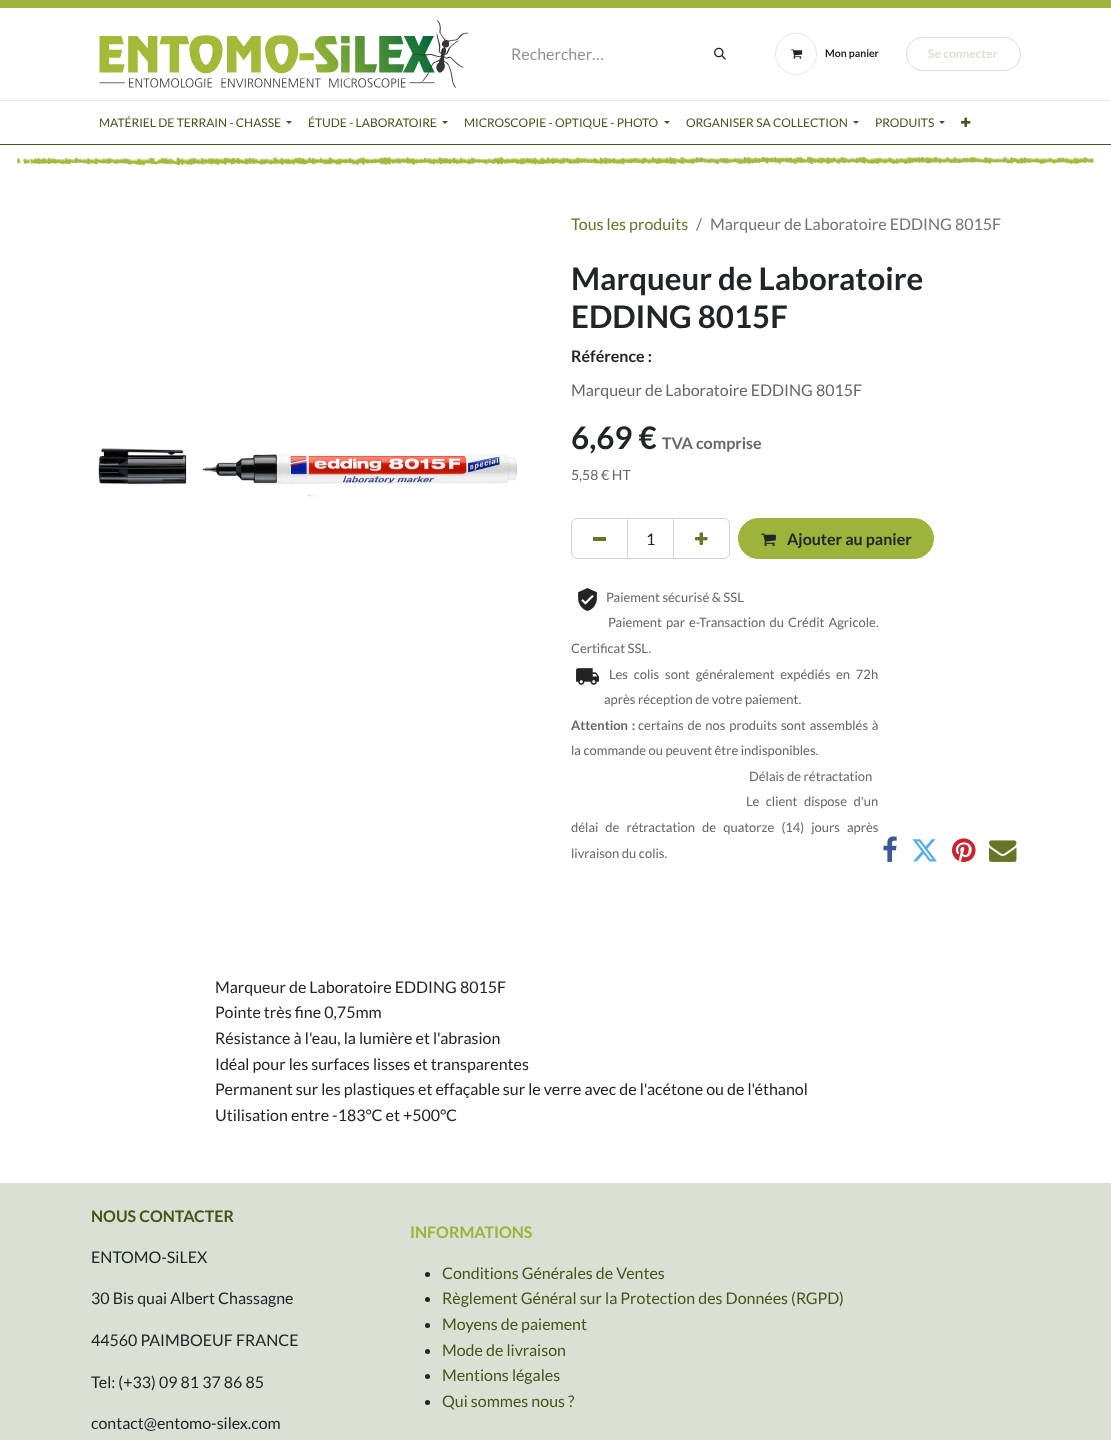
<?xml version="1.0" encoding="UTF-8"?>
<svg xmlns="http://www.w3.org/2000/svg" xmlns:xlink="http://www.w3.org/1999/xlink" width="1111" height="1440">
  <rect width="100%" height="100%" fill="#ffffff" />
  <rect y="144" width="1111" height="1" fill="#48541b" />
  <rect width="1111" height="8" fill="#9cb43a" />
  <image x="99" y="20" width="369" height="68" xlink:href="image1.png" />
  <image x="714" y="47" width="12" height="13" xlink:href="image2.png" />
  <circle cx="796" cy="54" r="20.5" fill="none" stroke="#e6e6e6" />
  <image x="791" y="49" width="12" height="10" xlink:href="image3.png" />
  <rect x="906.5" y="37.5" width="114" height="33" rx="16.5" fill="none" stroke="#dbe0d4" />
  <rect y="100" width="1111" height="1" fill="#e6e6e6" />
  <path d="M 286 121 h 6 l -3 3 z" fill="#48541b" />
  <path d="M 442 121 h 6 l -3 3 z" fill="#48541b" />
  <path d="M 664 121 h 6 l -3 3 z" fill="#48541b" />
  <path d="M 853 121 h 6 l -3 3 z" fill="#48541b" />
  <path d="M 939 121 h 6 l -3 3 z" fill="#48541b" />
  <image x="961" y="117" width="10" height="10" xlink:href="image4.png" />
  <image x="17" y="156" width="1077" height="10" xlink:href="image5.png" />
  <image x="98" y="448" width="419" height="49" xlink:href="image6.png" />
  <rect x="627.5" y="518.5" width="46" height="40" fill="none" stroke="#ced4da" />
  <path d="M 577 518.5 h 50.5 v 40 h -50.5 c -3 0 -5.5 -2.5 -5.5 -5.5 v -29 c 0 -3 2.5 -5.5 5.5 -5.5 z" fill="none" stroke="#ced4da" />
  <rect x="593" y="537" width="13" height="4" fill="#677626" />
  <path d="M 673.5 518.5 h 50.5 c 3 0 5.5 2.5 5.5 5.5 v 29 c 0 3 -2.5 5.5 -5.5 5.5 h -50.5 z" fill="none" stroke="#ced4da" />
  <image x="695" y="532" width="13" height="13" xlink:href="image7.png" />
  <rect x="738.5" y="518.5" width="195" height="40" rx="20" fill="#9cb43a" stroke="#9cb43a" />
  <image x="761" y="533" width="15" height="14" xlink:href="image8.png" />
  <image x="578" y="588" width="19" height="23" xlink:href="image9.png" />
  <image x="576" y="668" width="23" height="17" xlink:href="image10.png" />
  <image x="883" y="836" width="14" height="26" xlink:href="image11.png" />
  <image x="912" y="839" width="25" height="23" xlink:href="image12.png" />
  <image x="952" y="838" width="24" height="24" xlink:href="image13.png" />
  <image x="989" y="840" width="28" height="22" xlink:href="image14.png" />
  <rect y="1183" width="1111" height="257" fill="#dbe0d4" />
  <circle cx="427.5" cy="1274.5" r="2.5" fill="#212529" />
  <circle cx="427.5" cy="1299.5" r="2.5" fill="#212529" />
  <circle cx="427.5" cy="1325.5" r="2.5" fill="#212529" />
  <circle cx="427.5" cy="1351.5" r="2.5" fill="#212529" />
  <circle cx="427.5" cy="1376.5" r="2.5" fill="#212529" />
  <circle cx="427.5" cy="1402.5" r="2.5" fill="#212529" />
  <text x="511" y="60" style="font-family: Lato; font-size: 16px; fill: #909294">Rechercher…</text>
  <text x="825" y="57" style="font-family: Lato; font-size: 10.5px; font-weight: bold; fill: #212529">Mon panier</text>
  <text x="928" y="58" style="font-family: Lato; font-size: 12px; font-weight: bold; fill: #dbe0d4">Se connecter</text>
  <text x="99" y="127" style="font-family: Lato; font-size: 12px; fill: #48541b">MATÉRIEL DE TERRAIN - CHASSE</text>
  <text x="308" y="127" style="font-family: Lato; font-size: 12px; fill: #48541b">ÉTUDE - LABORATOIRE</text>
  <text x="464" y="127" style="font-family: Lato; font-size: 12px; fill: #48541b">MICROSCOPIE - OPTIQUE - PHOTO</text>
  <text x="686" y="127" style="font-family: Lato; font-size: 12px; fill: #48541b">ORGANISER SA COLLECTION</text>
  <text x="875" y="127" style="font-family: Lato; font-size: 12px; fill: #48541b">PRODUITS</text>
  <text x="571" y="230" style="font-family: Lato; font-size: 16px; fill: #677626">Tous les produits</text>
  <text x="696" y="230" style="font-family: Lato; font-size: 16px; fill: #6c757d">/</text>
  <text x="710" y="230" style="font-family: Lato; font-size: 16px; fill: #6c757d">Marqueur de Laboratoire EDDING 8015F</text>
  <text x="571" y="290" style="font-family: Lato; font-size: 31.25px; font-weight: bold; fill: #212529">Marqueur de Laboratoire</text>
  <text x="571" y="328" style="font-family: Lato; font-size: 31.25px; font-weight: bold; fill: #212529">EDDING 8015F</text>
  <text x="571" y="362" style="font-family: Lato; font-size: 16px; font-weight: bold; fill: #212529">Référence :</text>
  <text x="571" y="396" style="font-family: Lato; font-size: 16px; fill: #646669">Marqueur de Laboratoire EDDING 8015F</text>
  <text x="571" y="449" style="font-family: Lato; font-size: 31.25px; font-weight: bold; fill: #212529">6,69 €</text>
  <text x="662" y="449" style="font-family: Lato; font-size: 16px; font-weight: bold; fill: #646669">TVA comprise</text>
  <text x="571" y="480" style="font-family: Lato; font-size: 14px; fill: #646669">5,58 € HT</text>
  <text x="646" y="545" style="font-family: Lato; font-size: 16px; fill: #212529">1</text>
  <text x="787" y="545" style="font-family: Lato; font-size: 16px; font-weight: bold; fill: #212529">Ajouter au panier</text>
  <text x="606" y="602" style="font-family: Lato; font-size: 13px; fill: #646669">Paiement sécurisé &amp; SSL</text>
  <text x="608" y="627" word-spacing="1.5" style="font-family: Lato; font-size: 13px; fill: #646669">Paiement par e-Transaction du Crédit Agricole.</text>
  <text x="571" y="653" style="font-family: Lato; font-size: 13px; fill: #646669">Certificat SSL.</text>
  <text x="609" y="679" word-spacing="3.25" style="font-family: Lato; font-size: 13px; fill: #646669">Les colis sont généralement expédiés en 72h</text>
  <text x="604" y="704" style="font-family: Lato; font-size: 13px; fill: #646669">après réception de votre paiement.</text>
  <text x="571" y="730" word-spacing="1.25" style="font-family: Lato; font-size: 13px; font-weight: bold; fill: #646669">Attention :</text>
  <text x="638" y="730" word-spacing="1.25" style="font-family: Lato; font-size: 13px; fill: #646669">certains de nos produits sont assemblés à</text>
  <text x="571" y="755" style="font-family: Lato; font-size: 13px; fill: #646669">la commande ou peuvent être indisponibles.</text>
  <text x="749" y="781" style="font-family: Lato; font-size: 13px; fill: #646669">Délais de rétractation</text>
  <text x="746" y="806" word-spacing="4" style="font-family: Lato; font-size: 13px; fill: #646669">Le client dispose d'un</text>
  <text x="571" y="832" word-spacing="4.5" style="font-family: Lato; font-size: 13px; fill: #646669">délai de rétractation de quatorze (14) jours après</text>
  <text x="571" y="858" style="font-family: Lato; font-size: 13px; fill: #646669">livraison du colis.</text>
  <text x="215" y="993" style="font-family: Lato; font-size: 16px; fill: #212529">Marqueur de Laboratoire EDDING 8015F</text>
  <text x="215" y="1018" style="font-family: Lato; font-size: 16px; fill: #212529">Pointe très fine 0,75mm</text>
  <text x="215" y="1044" style="font-family: Lato; font-size: 16px; fill: #212529">Résistance à l'eau, la lumière et l'abrasion</text>
  <text x="215" y="1070" style="font-family: Lato; font-size: 16px; fill: #212529">Idéal pour les surfaces lisses et transparentes</text>
  <text x="215" y="1095" style="font-family: Lato; font-size: 16px; fill: #212529">Permanent sur les plastiques et effaçable sur le verre avec de l'acétone ou de l'éthanol</text>
  <text x="215" y="1121" style="font-family: Lato; font-size: 16px; fill: #212529">Utilisation entre -183°C et +500°C</text>
  <text x="91" y="1222" style="font-family: Lato; font-size: 16px; font-weight: bold; fill: #48541b">NOUS CONTACTER</text>
  <text x="91" y="1263" style="font-family: Lato; font-size: 16px; fill: #212529">ENTOMO-SiLEX</text>
  <text x="91" y="1304" style="font-family: Lato; font-size: 16px; fill: #212529">30 Bis quai Albert Chassagne</text>
  <text x="91" y="1346" style="font-family: Lato; font-size: 16px; fill: #212529">44560 PAIMBOEUF FRANCE</text>
  <text x="91" y="1388" style="font-family: Lato; font-size: 16px; fill: #212529">Tel: (+33) 09 81 37 86 85</text>
  <text x="91" y="1429" style="font-family: Lato; font-size: 16px; fill: #212529">contact@entomo-silex.com</text>
  <text x="410" y="1238" style="font-family: Lato; font-size: 16px; font-weight: bold; fill: #9cb43a">INFORMATIONS</text>
  <text x="442" y="1279" style="font-family: Lato; font-size: 16px; fill: #48541b">Conditions Générales de Ventes</text>
  <text x="442" y="1304" style="font-family: Lato; font-size: 16px; fill: #48541b">Règlement Général sur la Protection des Données (RGPD)</text>
  <text x="442" y="1330" style="font-family: Lato; font-size: 16px; fill: #48541b">Moyens de paiement</text>
  <text x="442" y="1356" style="font-family: Lato; font-size: 16px; fill: #48541b">Mode de livraison</text>
  <text x="442" y="1381" style="font-family: Lato; font-size: 16px; fill: #48541b">Mentions légales</text>
  <text x="442" y="1407" style="font-family: Lato; font-size: 16px; fill: #48541b">Qui sommes nous ?</text>
</svg>
